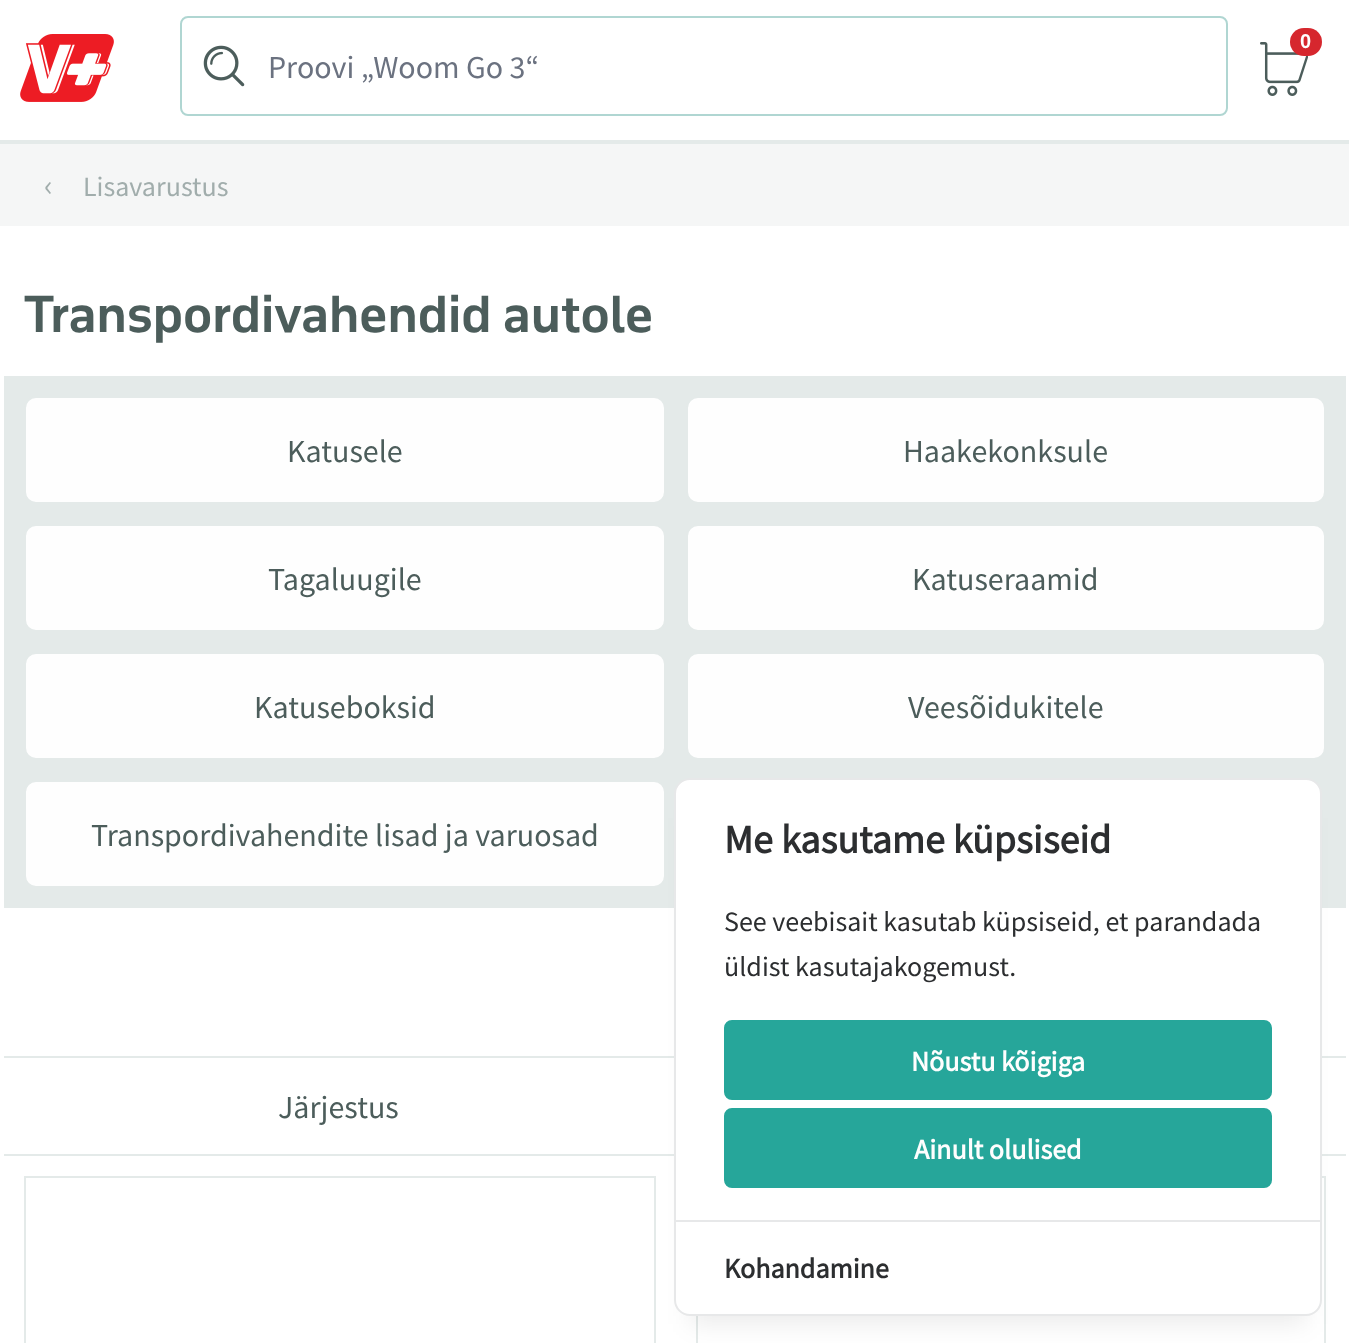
<?xml version="1.0" encoding="UTF-8"?>
<svg xmlns="http://www.w3.org/2000/svg" xmlns:xlink="http://www.w3.org/1999/xlink" width="1349" height="1343">
  <rect width="100%" height="100%" fill="#ffffff" />
  <rect y="140" width="1349" height="4" fill="#e4eae9" />
  <image x="20" y="34" width="94" height="68" xlink:href="image1.png" />
  <image x="1260" y="42" width="48" height="54" xlink:href="image2.png" />
  <rect x="1290" y="28" width="32" height="28" rx="14" fill="#d6272e" />
  <image x="203" y="45" width="42" height="42" xlink:href="image3.png" />
  <rect x="181" y="17" width="1046" height="98" rx="7" fill="none" stroke="#b0d6d2" stroke-width="2" />
  <rect y="144" width="1349" height="82" fill="#f5f6f6" />
  <rect x="4" y="376" width="1342" height="532" fill="#e4eae9" />
  <rect x="25" y="397" width="640" height="106" rx="11" fill="#fefefe" stroke="#e4eae9" stroke-width="2" />
  <rect x="687" y="397" width="638" height="106" rx="11" fill="#fefefe" stroke="#e4eae9" stroke-width="2" />
  <rect x="25" y="525" width="640" height="106" rx="11" fill="#fefefe" stroke="#e4eae9" stroke-width="2" />
  <rect x="687" y="525" width="638" height="106" rx="11" fill="#fefefe" stroke="#e4eae9" stroke-width="2" />
  <rect x="25" y="653" width="640" height="106" rx="11" fill="#fefefe" stroke="#e4eae9" stroke-width="2" />
  <rect x="687" y="653" width="638" height="106" rx="11" fill="#fefefe" stroke="#e4eae9" stroke-width="2" />
  <rect x="25" y="781" width="640" height="106" rx="11" fill="#fefefe" stroke="#e4eae9" stroke-width="2" />
  <rect x="4" y="1056" width="672" height="2" fill="#e4eae9" />
  <rect x="4" y="1154" width="672" height="2" fill="#e4eae9" />
  <rect x="1322" y="1056" width="24" height="2" fill="#e4eae9" />
  <rect x="1322" y="1154" width="24" height="2" fill="#e4eae9" />
  <rect x="25" y="1177" width="630" height="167" fill="none" stroke="#e4eae9" stroke-width="2" />
  <rect x="697" y="1177" width="628" height="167" fill="none" stroke="#e4eae9" stroke-width="2" />
  <rect x="690" y="818" width="616" height="506" fill="#000000" fill-opacity="0.08" filter="blur(12px)" />
  <rect x="675" y="779" width="646" height="536" rx="15" fill="#ffffff" stroke="#e7e8e9" stroke-width="2" />
  <rect x="725" y="1021" width="546" height="78" rx="7" fill="#26a69a" stroke="#26a69a" stroke-width="2" />
  <rect x="725" y="1109" width="546" height="78" rx="7" fill="#26a69a" stroke="#26a69a" stroke-width="2" />
  <rect x="676" y="1220" width="644" height="2" fill="#e7e8e9" />
  <text x="1300" y="48" style="font-family: Liberation Sans; font-size: 20px; font-weight: bold; fill: #fefefe">0</text>
  <text x="268" y="78" style="font-family: Source Sans Pro; font-size: 32px; fill: #6b7280">Proovi „Woom Go 3“</text>
  <text x="44" y="196" style="font-family: Source Sans Pro; font-size: 32px; fill: #a1adac">‹</text>
  <text x="83" y="196" style="font-family: Source Sans Pro; font-size: 28px; fill: #a1adac">Lisavarustus</text>
  <text x="24" y="332" style="font-family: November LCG; font-size: 48px; font-weight: bold; fill: #4c5d5b">Transpordivahendid autole</text>
  <text x="287" y="462" style="font-family: Source Sans Pro; font-size: 32px; fill: #4c5d5b">Katusele</text>
  <text x="903" y="462" style="font-family: Source Sans Pro; font-size: 32px; fill: #4c5d5b">Haakekonksule</text>
  <text x="268" y="590" style="font-family: Source Sans Pro; font-size: 32px; fill: #4c5d5b">Tagaluugile</text>
  <text x="912" y="590" style="font-family: Source Sans Pro; font-size: 32px; fill: #4c5d5b">Katuseraamid</text>
  <text x="254" y="718" style="font-family: Source Sans Pro; font-size: 32px; fill: #4c5d5b">Katuseboksid</text>
  <text x="908" y="718" style="font-family: Source Sans Pro; font-size: 32px; fill: #4c5d5b">Veesõidukitele</text>
  <text x="91" y="846" style="font-family: Source Sans Pro; font-size: 32px; fill: #4c5d5b">Transpordivahendite lisad ja varuosad</text>
  <text x="278" y="1118" style="font-family: Source Sans Pro; font-size: 32px; fill: #4c5d5b">Järjestus</text>
  <text x="724" y="853" style="font-family: Source Sans Pro; font-size: 40px; font-weight: bold; fill: #2c2e30">Me kasutame küpsiseid</text>
  <text x="724" y="931" style="font-family: Source Sans Pro; font-size: 28px; fill: #2c2e30">See veebisait kasutab küpsiseid, et parandada</text>
  <text x="724" y="976" style="font-family: Source Sans Pro; font-size: 28px; fill: #2c2e30">üldist kasutajakogemust.</text>
  <text x="911" y="1071" style="font-family: Source Sans Pro; font-size: 28px; font-weight: bold; fill: #fefefe">Nõustu kõigiga</text>
  <text x="914" y="1159" style="font-family: Source Sans Pro; font-size: 28px; font-weight: bold; fill: #fefefe">Ainult olulised</text>
  <text x="724" y="1278" style="font-family: Source Sans Pro; font-size: 28px; font-weight: bold; fill: #2c2e30">Kohandamine</text>
</svg>
